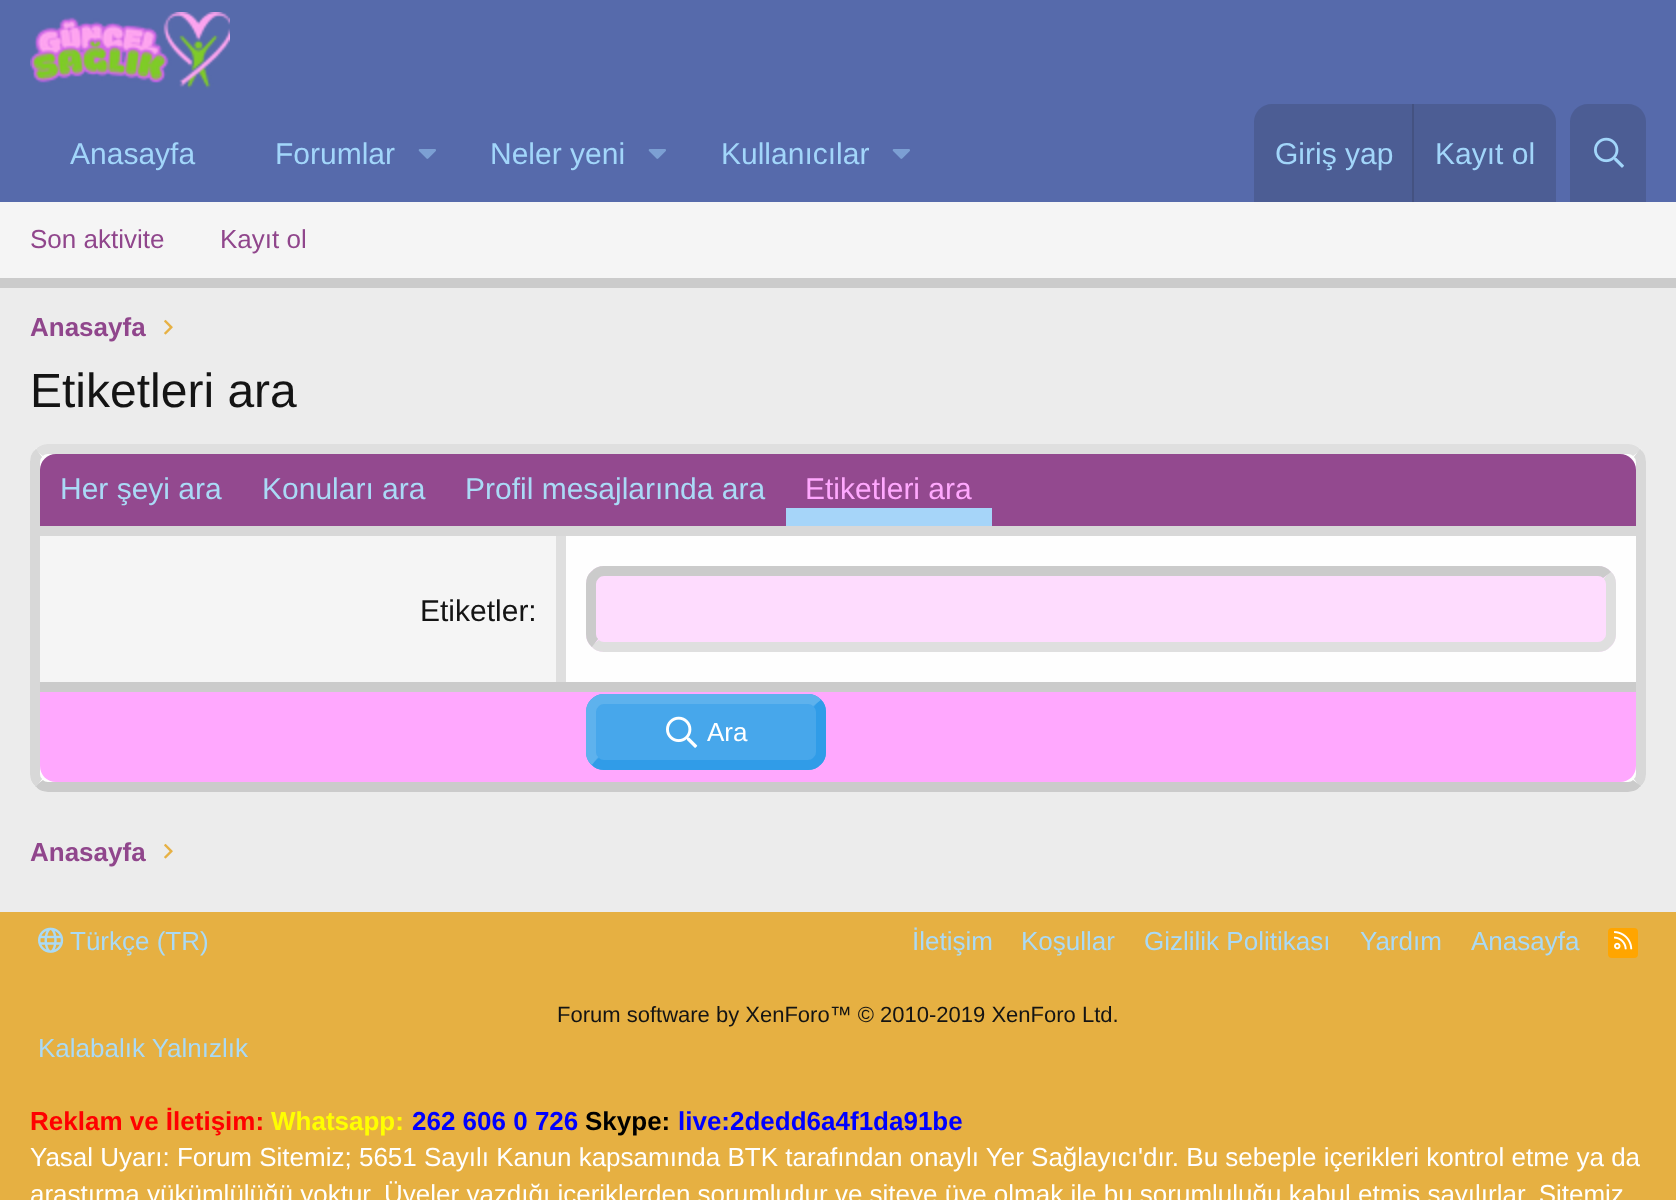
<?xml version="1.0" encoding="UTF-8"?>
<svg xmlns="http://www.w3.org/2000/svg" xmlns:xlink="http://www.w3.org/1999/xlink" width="1676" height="1200">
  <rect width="100%" height="100%" fill="#ececec" />
  <rect width="1676" height="202" fill="#566aab" />
  <image x="30" y="12" width="200" height="77" xlink:href="image1.png" />
  <image x="418" y="149" width="18" height="10" xlink:href="image2.png" />
  <image x="648" y="149" width="18" height="10" xlink:href="image2.png" />
  <image x="892" y="149" width="18" height="10" xlink:href="image2.png" />
  <path d="M 1272 104 h 266 c 10 0 18 8 18 18 v 80 h -302 v -80 c 0 -10 8 -18 18 -18 z" fill="#4c5d94" />
  <rect x="1412" y="104" width="2" height="98" fill="#445281" />
  <path d="M 1588 104 h 40 c 10 0 18 8 18 18 v 80 h -76 v -80 c 0 -10 8 -18 18 -18 z" fill="#4c5d94" />
  <image x="1594" y="137" width="30" height="31" xlink:href="image3.png" />
  <rect y="202" width="1676" height="76" fill="#f5f5f5" />
  <rect y="278" width="1676" height="10" fill="#cbcbcb" />
  <image x="164" y="319" width="9" height="16" xlink:href="image4.png" />
  <rect x="30" y="444" width="1616" height="348" rx="18" fill="#fefefe" />
  <path d="M 39 453 c 2 -2.5 5.5 -4 9 -4 h 1580 c 3.5 0 7 1.5 9 4" fill="none" stroke="#dfdfdf" stroke-width="10" />
  <path d="M 1637 453 c 2.5 2 4 5.5 4 9 v 312 c 0 3.5 -1.5 7 -4 9" fill="none" stroke="#d8d8d8" stroke-width="10" />
  <path d="M 1637 783 c -2 2.5 -5.5 4 -9 4 h -1580 c -3.5 0 -7 -1.5 -9 -4" fill="none" stroke="#cbcbcb" stroke-width="10" />
  <path d="M 39 783 c -2.5 -2 -4 -5.5 -4 -9 v -312 c 0 -3.5 1.5 -7 4 -9" fill="none" stroke="#d8d8d8" stroke-width="10" />
  <path d="M 56 454 h 1564 c 9 0 16 7 16 16 v 66 h -1596 v -66 c 0 -9 7 -16 16 -16 z" fill="#93498f" />
  <rect x="40" y="526" width="1596" height="10" fill="#d8d8d8" />
  <rect x="786" y="508" width="206" height="18" fill="#a6d5f9" />
  <rect x="40" y="536" width="516" height="146" fill="#f5f5f5" />
  <rect x="556" y="536" width="10" height="146" fill="#dfdfdf" />
  <rect x="586" y="566" width="1030" height="86" rx="18" fill="#fedcfe" />
  <path d="M 1607 575 c 2.5 2 4 5.5 4 9 v 50 c 0 3.5 -1.5 7 -4 9 c -2 2.5 -5.5 4 -9 4 h -994 c -3.5 0 -7 -1.5 -9 -4" fill="none" stroke="#dfdfdf" stroke-width="10" />
  <path d="M 595 643 c -2.5 -2 -4 -5.5 -4 -9 v -50 c 0 -3.5 1.5 -7 4 -9 c 2 -2.5 5.5 -4 9 -4 h 994 c 3.5 0 7 1.5 9 4" fill="none" stroke="#cbcbcb" stroke-width="10" />
  <path d="M 40 682 h 1596 v 84 c 0 9 -7 16 -16 16 h -1564 c -9 0 -16 -7 -16 -16 z" fill="#ffa8fe" />
  <rect x="40" y="682" width="1596" height="10" fill="#cbcbcb" />
  <rect x="586" y="694" width="240" height="76" rx="18" fill="#47a7eb" />
  <path d="M 817 703 c 2.5 2 4 5.5 4 9 v 40 c 0 3.5 -1.5 7 -4 9 c -2 2.5 -5.5 4 -9 4 h -204 c -3.5 0 -7 -1.5 -9 -4" fill="none" stroke="#309ce8" stroke-width="10" />
  <path d="M 595 761 c -2.5 -2 -4 -5.5 -4 -9 v -40 c 0 -3.5 1.5 -7 4 -9 c 2 -2.5 5.5 -4 9 -4 h 204 c 3.5 0 7 1.5 9 4" fill="none" stroke="#5eb2ed" stroke-width="10" />
  <image x="666" y="716" width="32" height="32" xlink:href="image5.png" />
  <image x="164" y="843" width="9" height="16" xlink:href="image4.png" />
  <rect y="912" width="1676" height="288" fill="#e6b042" />
  <image x="38" y="927" width="26" height="26" xlink:href="image6.png" />
  <rect x="1608" y="928" width="30" height="30" rx="4" fill="#ffa500" />
  <image x="1614" y="931" width="19" height="19" xlink:href="image7.png" />
  <text x="70" y="164" style="font-family: Liberation Sans; font-size: 30px; fill: #a2d6fa">Anasayfa</text>
  <text x="275" y="164" style="font-family: Liberation Sans; font-size: 30px; fill: #a2d6fa">Forumlar</text>
  <text x="490" y="164" style="font-family: Liberation Sans; font-size: 30px; fill: #a2d6fa">Neler yeni</text>
  <text x="721" y="164" style="font-family: Liberation Sans; font-size: 30px; fill: #a2d6fa">Kullanıcılar</text>
  <text x="1275" y="164" style="font-family: Liberation Sans; font-size: 30px; fill: #a2d6fa">Giriş yap</text>
  <text x="1435" y="164" style="font-family: Liberation Sans; font-size: 30px; fill: #a2d6fa">Kayıt ol</text>
  <text x="30" y="248" style="font-family: Liberation Sans; font-size: 26px; fill: #90468c">Son aktivite</text>
  <text x="220" y="248" style="font-family: Liberation Sans; font-size: 26px; fill: #90468c">Kayıt ol</text>
  <text x="30" y="336" style="font-family: Liberation Sans; font-size: 26px; font-weight: bold; fill: #90468c">Anasayfa</text>
  <text x="30" y="407" style="font-family: Liberation Sans; font-size: 48px; fill: #141414">Etiketleri ara</text>
  <text x="60" y="499" style="font-family: Liberation Sans; font-size: 30px; fill: #aadaf6">Her şeyi ara</text>
  <text x="262" y="499" style="font-family: Liberation Sans; font-size: 30px; fill: #aadaf6">Konuları ara</text>
  <text x="465" y="499" style="font-family: Liberation Sans; font-size: 30px; fill: #aadaf6">Profil mesajlarında ara</text>
  <text x="805" y="499" style="font-family: Liberation Sans; font-size: 30px; fill: #ffa8fe">Etiketleri ara</text>
  <text x="420" y="621" style="font-family: Liberation Sans; font-size: 30px; fill: #141414">Etiketler:</text>
  <text x="707" y="741" style="font-family: Liberation Sans; font-size: 26px; fill: #ffffff">Ara</text>
  <text x="30" y="861" style="font-family: Liberation Sans; font-size: 26px; font-weight: bold; fill: #90468c">Anasayfa</text>
  <text x="70" y="950" style="font-family: Liberation Sans; font-size: 26px; fill: #aadaf6">Türkçe (TR)</text>
  <text x="912" y="950" style="font-family: Liberation Sans; font-size: 26px; fill: #aadaf6">İletişim</text>
  <text x="1021" y="950" style="font-family: Liberation Sans; font-size: 26px; fill: #aadaf6">Koşullar</text>
  <text x="1144" y="950" style="font-family: Liberation Sans; font-size: 26px; fill: #aadaf6">Gizlilik Politikası</text>
  <text x="1360" y="950" style="font-family: Liberation Sans; font-size: 26px; fill: #aadaf6">Yardım</text>
  <text x="1471" y="950" style="font-family: Liberation Sans; font-size: 26px; fill: #aadaf6">Anasayfa</text>
  <text x="557" y="1022" style="font-family: Liberation Sans; font-size: 22px; fill: #141414">Forum software by XenForo™ © 2010-2019 XenForo Ltd.</text>
  <text x="38" y="1057" style="font-family: Liberation Sans; font-size: 26px; fill: #aadaf6">Kalabalık Yalnızlık</text>
  <text x="30" y="1130" style="font-family: Liberation Sans; font-size: 26px; font-weight: bold; fill: #ff0000">Reklam ve İletişim:</text>
  <text x="271" y="1130" style="font-family: Liberation Sans; font-size: 26px; font-weight: bold; fill: #ffff00">Whatsapp:</text>
  <text x="412" y="1130" style="font-family: Liberation Sans; font-size: 26px; font-weight: bold; fill: #0000ff">262 606 0 726</text>
  <text x="585" y="1130" style="font-family: Liberation Sans; font-size: 26px; font-weight: bold; fill: #000000">Skype:</text>
  <text x="678" y="1130" style="font-family: Liberation Sans; font-size: 26px; font-weight: bold; fill: #0000ff">live:2dedd6a4f1da91be</text>
  <text x="30" y="1166" style="font-family: Liberation Sans; font-size: 26px; fill: #ffffff">Yasal Uyarı: Forum Sitemiz; 5651 Sayılı Kanun kapsamında BTK tarafından onaylı Yer Sağlayıcı'dır. Bu sebeple içerikleri kontrol etme ya da</text>
  <text x="30" y="1203" style="font-family: Liberation Sans; font-size: 26px; fill: #ffffff">araştırma yükümlülüğü yoktur. Üyeler yazdığı içeriklerden sorumludur ve siteye üye olmak ile bu sorumluluğu kabul etmiş sayılırlar. Sitemiz</text>
</svg>
